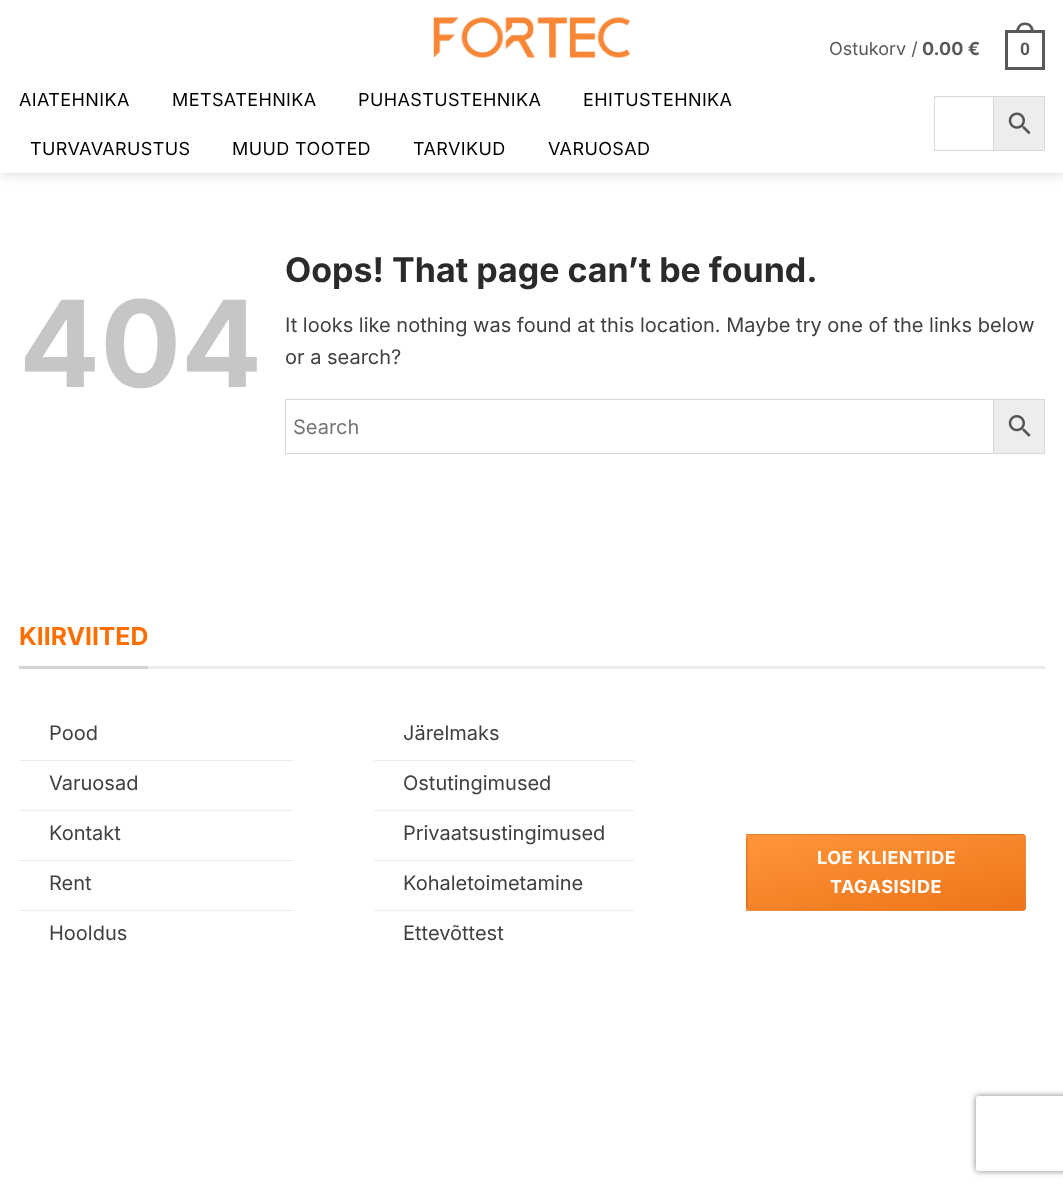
<?xml version="1.0" encoding="UTF-8"?>
<svg xmlns="http://www.w3.org/2000/svg" xmlns:xlink="http://www.w3.org/1999/xlink" width="1063" height="1188">
  <defs>
    <linearGradient id="g1" gradientUnits="userSpaceOnUse" x1="595" y1="733" x2="622" y2="862"><stop offset="0" stop-color="#ff963a" /><stop offset="1" stop-color="#ed741a" /></linearGradient>
    <clipPath id="clip1"><rect x="746" y="834" width="280" height="77" rx="4" /></clipPath>
    <linearGradient id="g2" gradientUnits="userSpaceOnUse" x1="873" y1="733" x2="900" y2="862"><stop offset="0" stop-color="#ff963a" /><stop offset="1" stop-color="#ed741a" /></linearGradient>
    <linearGradient id="g3" gradientUnits="userSpaceOnUse" x1="595" y1="808" x2="622" y2="937"><stop offset="0" stop-color="#ff963a" /><stop offset="1" stop-color="#ed741a" /></linearGradient>
    <linearGradient id="g4" gradientUnits="userSpaceOnUse" x1="873" y1="808" x2="900" y2="937"><stop offset="0" stop-color="#ff963a" /><stop offset="1" stop-color="#ed741a" /></linearGradient>
    <linearGradient id="g5" gradientUnits="userSpaceOnUse" x1="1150" y1="808" x2="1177" y2="937"><stop offset="0" stop-color="#ff963a" /><stop offset="1" stop-color="#ed741a" /></linearGradient>
    <linearGradient id="g6" gradientUnits="userSpaceOnUse" x1="595" y1="883" x2="622" y2="1012"><stop offset="0" stop-color="#ff963a" /><stop offset="1" stop-color="#ed741a" /></linearGradient>
    <linearGradient id="g7" gradientUnits="userSpaceOnUse" x1="873" y1="883" x2="900" y2="1012"><stop offset="0" stop-color="#ff963a" /><stop offset="1" stop-color="#ed741a" /></linearGradient>
    <clipPath id="clip2"><path d="M 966 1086 h 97 v 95 h -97 z m 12.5 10 h 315 c 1.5 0 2.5 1 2.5 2.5 v 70 c 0 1.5 -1 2.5 -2.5 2.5 h -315 c -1.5 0 -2.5 -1 -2.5 -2.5 v -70 c 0 -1.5 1 -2.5 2.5 -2.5 z" clip-rule="evenodd" /></clipPath>
  </defs>
  <rect width="100%" height="100%" fill="#ffffff" />
  <rect x="1" y="1" width="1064" height="173" fill="#000000" fill-opacity="0.15" filter="blur(6px)" />
  <rect width="1063" height="173" fill="#ffffff" />
  <image x="433" y="17" width="197" height="41" xlink:href="image1.png" />
  <rect x="1006.5" y="31.5" width="37" height="37" fill="none" stroke="#595959" stroke-width="3" />
  <path d="M 1025 22.5 c 6 0 9 4.5 9 10 h -18 c 0 -5.5 3 -10 9 -10 z m 0 2.5 c 4.5 0 6 3.5 6 7.5 h -12 c 0 -4 1.5 -7.5 6 -7.5 z" fill="#595959" fill-rule="evenodd" />
  <rect x="993.5" y="96.5" width="51" height="54" fill="#ededed" stroke="#d8d8d8" />
  <rect x="934.5" y="96.5" width="59" height="54" fill="none" stroke="#d8d8d8" />
  <image x="1008" y="112" width="23" height="23" xlink:href="image2.png" />
  <rect x="993.5" y="399.5" width="51" height="54" fill="#ededed" stroke="#d8d8d8" />
  <rect x="285.5" y="399.5" width="708" height="54" fill="none" stroke="#d8d8d8" />
  <image x="1008" y="415" width="23" height="22" xlink:href="image3.png" />
  <rect x="148" y="666" width="897" height="3" fill="#ececec" />
  <rect x="19" y="666" width="129" height="3" fill="#d4d4d4" />
  <rect x="19" y="760" width="275" height="1" fill="#ececec" />
  <rect x="19" y="810" width="275" height="1" fill="#ececec" />
  <rect x="19" y="860" width="275" height="1" fill="#ececec" />
  <rect x="19" y="910" width="275" height="1" fill="#ececec" />
  <rect x="374" y="760" width="260" height="1" fill="#ececec" />
  <rect x="374" y="810" width="260" height="1" fill="#ececec" />
  <rect x="374" y="860" width="260" height="1" fill="#ececec" />
  <rect x="374" y="910" width="260" height="1" fill="#ececec" />
  <rect x="746" y="834" width="2" height="1" fill="url(#g1)" />
  <g clip-path="url(#clip1)">
    <rect x="748" y="834" width="277" height="1" fill="url(#g2)" />
    <rect x="746" y="835" width="2" height="75" fill="url(#g3)" />
  </g>
  <rect x="748" y="835" width="277" height="75" fill="url(#g4)" />
  <g clip-path="url(#clip1)">
    <rect x="1025" y="835" width="1" height="75" fill="url(#g5)" />
  </g>
  <rect x="746" y="910" width="2" height="1" fill="url(#g6)" />
  <g clip-path="url(#clip1)">
    <rect x="748" y="910" width="277" height="1" fill="url(#g7)" />
  </g>
  <rect x="746.5" y="834.5" width="279" height="76" fill="none" stroke="#000000" stroke-opacity="0.05" />
  <g clip-path="url(#clip2)">
    <rect x="976" y="1096" width="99" height="75" rx="2.5" fill="#808080" filter="blur(3px)" />
  </g>
  <text x="829" y="55" style="font-family: Inter; font-size: 18px; fill: #595959">Ostukorv /</text>
  <text x="922" y="55" style="font-family: Inter; font-size: 18px; font-weight: bold; fill: #595959">0.00 €</text>
  <text x="1020" y="55" style="font-family: Liberation Sans; font-size: 18px; font-weight: bold; fill: #595959">0</text>
  <text x="19" y="106" style="font-family: Inter; font-size: 18px; letter-spacing: 0.4px; fill: #000000">AIATEHNIKA</text>
  <text x="172" y="106" style="font-family: Inter; font-size: 18px; letter-spacing: 0.4px; fill: #000000">METSATEHNIKA</text>
  <text x="358" y="106" style="font-family: Inter; font-size: 18px; letter-spacing: 0.4px; fill: #000000">PUHASTUSTEHNIKA</text>
  <text x="583" y="106" style="font-family: Inter; font-size: 18px; letter-spacing: 0.4px; fill: #000000">EHITUSTEHNIKA</text>
  <text x="30" y="155" style="font-family: Inter; font-size: 18px; letter-spacing: 0.4px; fill: #000000">TURVAVARUSTUS</text>
  <text x="232" y="155" style="font-family: Inter; font-size: 18px; letter-spacing: 0.4px; fill: #000000">MUUD TOOTED</text>
  <text x="413" y="155" style="font-family: Inter; font-size: 18px; letter-spacing: 0.4px; fill: #000000">TARVIKUD</text>
  <text x="548" y="155" style="font-family: Inter; font-size: 18px; letter-spacing: 0.4px; fill: #000000">VARUOSAD</text>
  <text x="19" y="387" style="font-family: Inter; font-size: 120px; font-weight: bold; fill: #c6c6c6">404</text>
  <text x="285" y="282" style="font-family: Inter; font-size: 34px; font-weight: bold; fill: #2a2a2a">Oops! That page can’t be found.</text>
  <text x="285" y="332" style="font-family: Inter; font-size: 20px; fill: #414041">It looks like nothing was found at this location. Maybe try one of the links below</text>
  <text x="285" y="364" style="font-family: Inter; font-size: 20px; fill: #414041">or a search?</text>
  <text x="293" y="434" style="font-family: Inter; font-size: 20px; fill: #757575">Search</text>
  <text x="19" y="645" style="font-family: Inter; font-size: 24.75px; font-weight: bold; fill: #fd6f00">KIIRVIITED</text>
  <text x="49" y="740" style="font-family: Inter; font-size: 20px; fill: #414041">Pood</text>
  <text x="49" y="790" style="font-family: Inter; font-size: 20px; fill: #414041">Varuosad</text>
  <text x="49" y="840" style="font-family: Inter; font-size: 20px; fill: #414041">Kontakt</text>
  <text x="49" y="890" style="font-family: Inter; font-size: 20px; fill: #414041">Rent</text>
  <text x="49" y="940" style="font-family: Inter; font-size: 20px; fill: #414041">Hooldus</text>
  <text x="403" y="740" style="font-family: Inter; font-size: 20px; fill: #414041">Järelmaks</text>
  <text x="403" y="790" style="font-family: Inter; font-size: 20px; fill: #414041">Ostutingimused</text>
  <text x="403" y="840" style="font-family: Inter; font-size: 20px; fill: #414041">Privaatsustingimused</text>
  <text x="403" y="890" style="font-family: Inter; font-size: 20px; fill: #414041">Kohaletoimetamine</text>
  <text x="403" y="940" style="font-family: Inter; font-size: 20px; fill: #414041">Ettevõttest</text>
  <text x="817" y="864" style="font-family: Inter; font-size: 18px; font-weight: bold; letter-spacing: 0.5px; fill: #ffffff">LOE KLIENTIDE</text>
  <text x="830" y="893" style="font-family: Inter; font-size: 18px; font-weight: bold; letter-spacing: 0.5px; fill: #ffffff">TAGASISIDE</text>
</svg>
